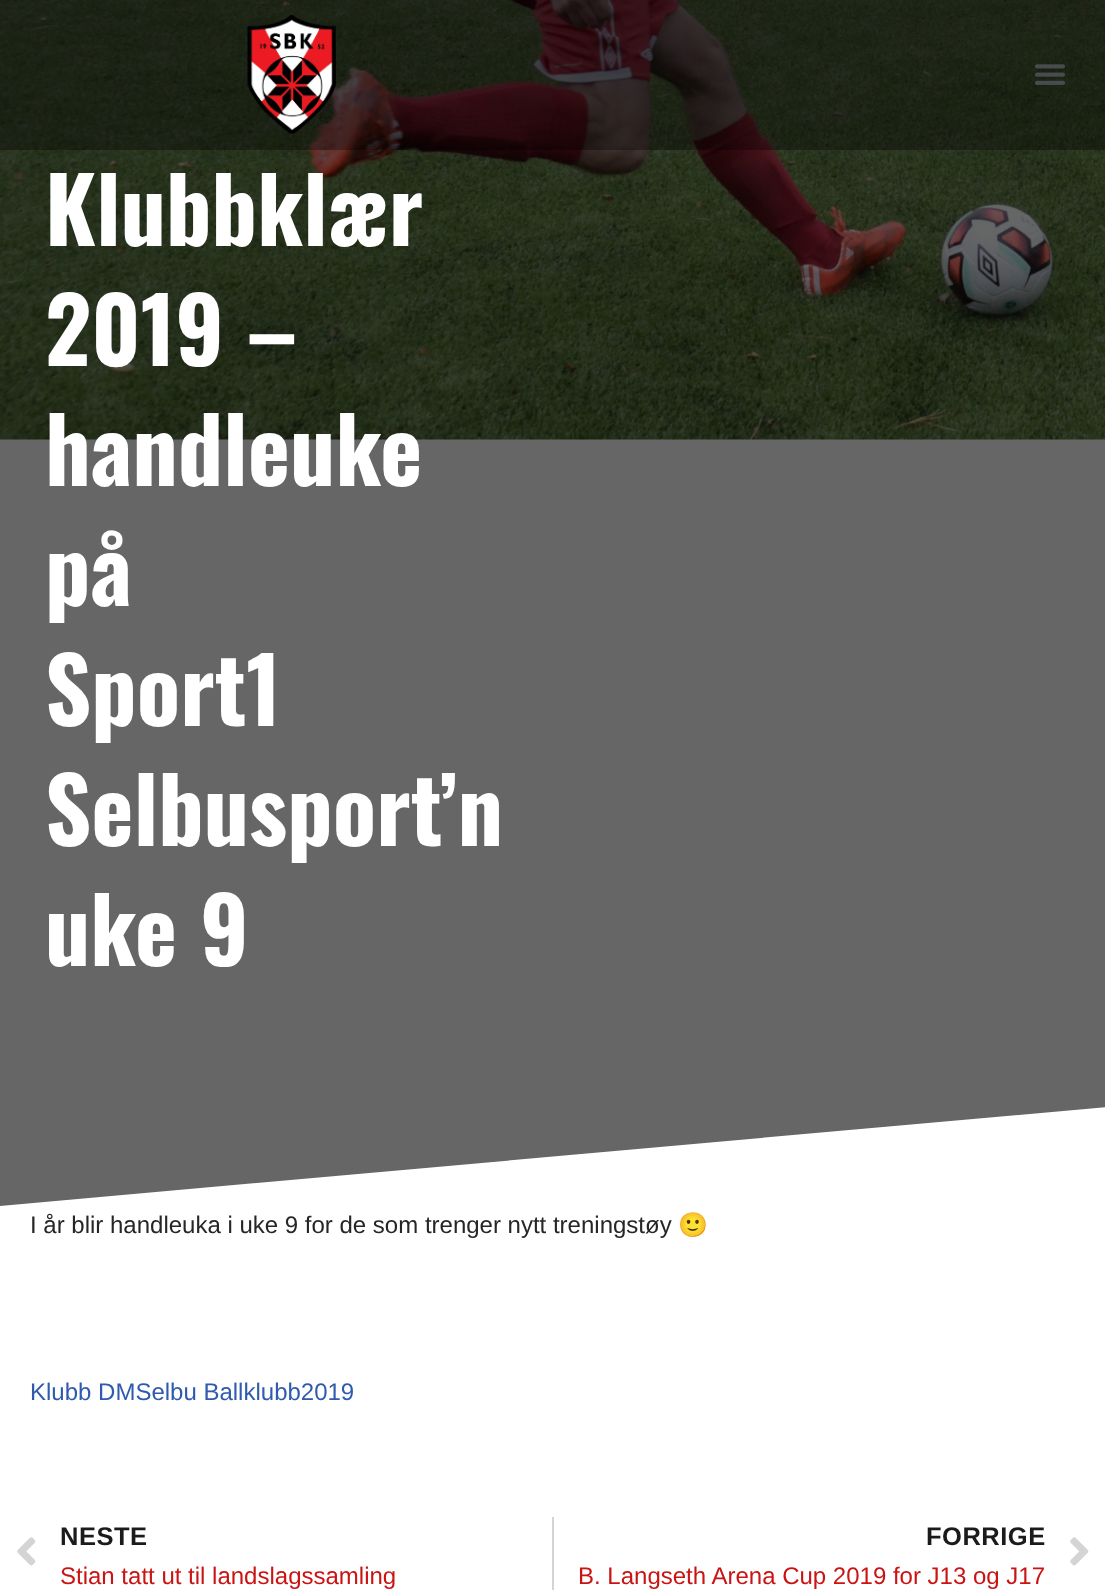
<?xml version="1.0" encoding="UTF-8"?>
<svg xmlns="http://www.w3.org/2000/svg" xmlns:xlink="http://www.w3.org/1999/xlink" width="1105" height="1590">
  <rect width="100%" height="100%" fill="#ffffff" />
  <rect y="439" width="1105" height="767" fill="#666666" />
  <image x="0" y="0" width="1105" height="440" xlink:href="image3.png" />
  <rect width="1105" height="150" fill="#000000" fill-opacity="0.34" />
  <image x="247" y="15" width="89" height="119" xlink:href="image1.png" />
  <image x="1035" y="64" width="30" height="21" xlink:href="image2.png" />
  <path d="M 0 1206 v 6 h 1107 v -105 z" fill="#ffffff" />
  <image x="17" y="1537" width="19" height="29" xlink:href="image4.png" />
  <rect x="552" y="1517" width="2" height="73" fill="#d4d4d4" />
  <image x="1070" y="1537" width="19" height="29" xlink:href="image5.png" />
  <text x="45" y="246" style="font-family: Oswald; font-size: 90px; font-weight: bold; fill: #ffffff">Klubbklær</text>
  <text x="45" y="366" style="font-family: Oswald; font-size: 90px; font-weight: bold; fill: #ffffff">2019 –</text>
  <text x="45" y="486" style="font-family: Oswald; font-size: 90px; font-weight: bold; fill: #ffffff">handleuke</text>
  <text x="45" y="606" style="font-family: Oswald; font-size: 90px; font-weight: bold; fill: #ffffff">på</text>
  <text x="45" y="726" style="font-family: Oswald; font-size: 90px; font-weight: bold; fill: #ffffff">Sport1</text>
  <text x="45" y="846" style="font-family: Oswald; font-size: 90px; font-weight: bold; fill: #ffffff">Selbusport’n</text>
  <text x="45" y="966" style="font-family: Oswald; font-size: 90px; font-weight: bold; fill: #ffffff">uke 9</text>
  <text x="30" y="1233" style="font-family: Liberation Sans; font-size: 24px; fill: #272626">I år blir handleuka i uke 9 for de som trenger nytt treningstøy</text>
  <text x="678" y="1233" style="font-family: Noto Color Emoji; font-size: 24px; fill: #272626">🙂</text>
  <text x="30" y="1400" style="font-family: Liberation Sans; font-size: 24px; fill: #2f5aae">Klubb DMSelbu Ballklubb2019</text>
  <text x="60" y="1545" style="font-family: Liberation Sans; font-size: 25.5px; font-weight: bold; letter-spacing: 0.5px; fill: #1b1b1b">NESTE</text>
  <text x="60" y="1584" style="font-family: Liberation Sans; font-size: 24px; fill: #cb1313">Stian tatt ut til landslagssamling</text>
  <text x="926" y="1545" style="font-family: Liberation Sans; font-size: 25.5px; font-weight: bold; letter-spacing: 0.5px; fill: #1b1b1b">FORRIGE</text>
  <text x="578" y="1584" style="font-family: Liberation Sans; font-size: 24px; fill: #cb1313">B. Langseth Arena Cup 2019 for J13 og J17</text>
</svg>
